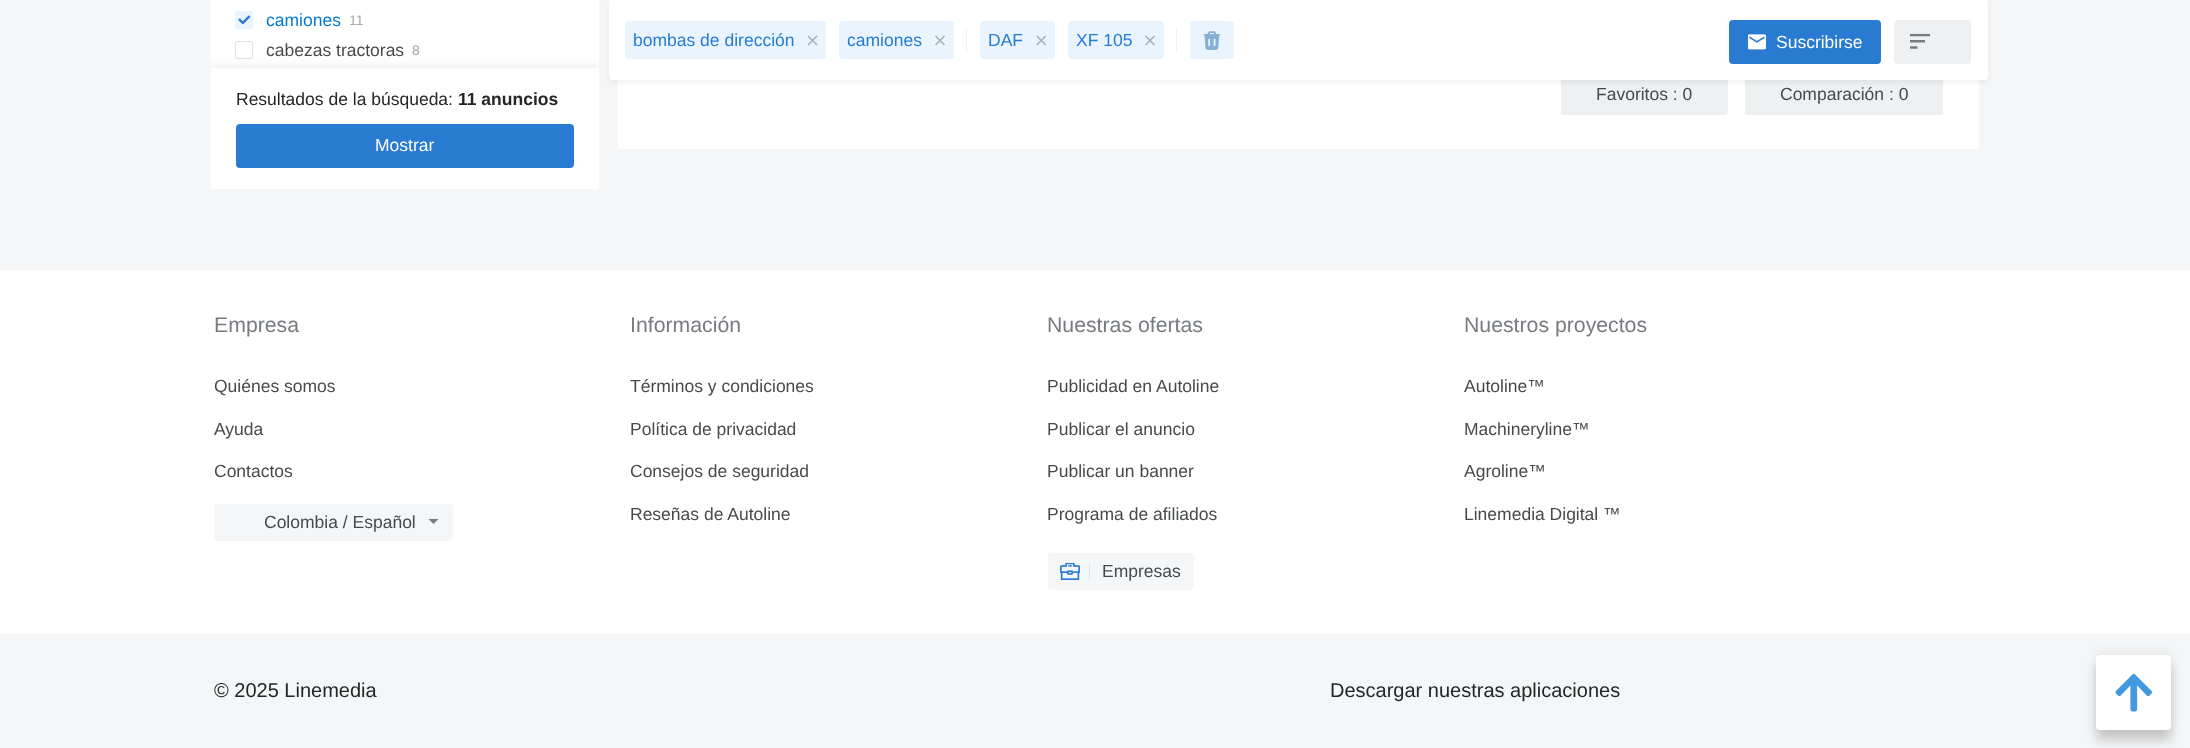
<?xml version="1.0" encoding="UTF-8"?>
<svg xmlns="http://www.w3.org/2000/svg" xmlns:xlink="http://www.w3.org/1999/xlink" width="2190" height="748">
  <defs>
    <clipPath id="clip1"><rect x="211" y="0" width="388" height="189" /></clipPath>
  </defs>
  <rect width="100%" height="100%" fill="#f5f6f7" />
  <rect x="211" width="388" height="68" fill="#ffffff" />
  <image x="235" y="11" width="18" height="18" xlink:href="image1.png" />
  <rect x="235.5" y="41.5" width="17" height="17" rx="1.5" fill="none" stroke="#e1e3e6" />
  <g clip-path="url(#clip1)">
    <rect x="211" y="68" width="388" height="121" fill="#000000" fill-opacity="0.1" filter="blur(6px)" />
  </g>
  <rect x="211" y="68" width="388" height="121" fill="#ffffff" />
  <rect x="236" y="124" width="338" height="44" rx="4" fill="#287bd1" />
  <rect x="618" y="80" width="1361" height="69" fill="#ffffff" />
  <rect x="1561" y="71" width="167" height="44" rx="4" fill="#eef0f2" />
  <rect x="1745" y="71" width="198" height="44" rx="4" fill="#eef0f2" />
  <rect x="609" y="3" width="1379" height="80" rx="4" fill="#000000" fill-opacity="0.05" filter="blur(2.5px)" />
  <rect x="609" width="1379" height="80" rx="4" fill="#ffffff" />
  <rect x="625" y="21" width="201" height="38" rx="4" fill="#e9f4ff" />
  <image x="808" y="35" width="10" height="11" xlink:href="image2.png" />
  <rect x="839" y="21" width="115" height="38" rx="4" fill="#e9f4ff" />
  <image x="935" y="35" width="10" height="11" xlink:href="image3.png" />
  <rect x="966" y="28" width="1" height="25" rx="0.5" fill="#eef0f2" />
  <rect x="980" y="21" width="75" height="38" rx="4" fill="#e9f4ff" />
  <image x="1036" y="35" width="10" height="11" xlink:href="image4.png" />
  <rect x="1068" y="21" width="96" height="38" rx="4" fill="#e9f4ff" />
  <image x="1145" y="35" width="10" height="11" xlink:href="image3.png" />
  <rect x="1176" y="28" width="1" height="25" rx="0.5" fill="#eef0f2" />
  <rect x="1190" y="21" width="44" height="38" rx="4" fill="#e9f4ff" />
  <image x="1204" y="31" width="16" height="19" xlink:href="image5.png" />
  <rect x="1729" y="20" width="152" height="44" rx="4" fill="#287bd1" />
  <image x="1748" y="34" width="18" height="16" xlink:href="image6.png" />
  <rect x="1894" y="20" width="77" height="44" rx="4" fill="#eef0f2" />
  <image x="1910" y="34" width="20" height="15" xlink:href="image7.png" />
  <rect y="270" width="2190" height="364" fill="#ffffff" />
  <rect x="214" y="504" width="239" height="37" rx="4" fill="#f5f6f7" />
  <path d="M 428.5 519 h 10 l -5 5 z" fill="#777b80" />
  <rect x="1048" y="553" width="146" height="37" rx="4" fill="#f5f6f7" />
  <image x="1060" y="563" width="20" height="17" xlink:href="image8.png" />
  <rect x="1089" y="563" width="1" height="17" fill="#e4e4e5" />
  <rect x="2096" y="650" width="75" height="75" rx="4" fill="#000000" fill-opacity="0.05" filter="blur(5px)" />
  <rect x="2096" y="665" width="75" height="75" rx="4" fill="#000000" fill-opacity="0.2" filter="blur(6px)" />
  <rect x="2096" y="655" width="75" height="75" rx="4" fill="#ffffff" />
  <image x="2115" y="674" width="37" height="38" xlink:href="image9.png" />
  <text x="266" y="26" style="font-family: Liberation Sans; font-size: 17.5px; fill: #007acf">camiones</text>
  <text x="349" y="25" style="font-family: Liberation Sans; font-size: 14px; fill: #a8aaae">11</text>
  <text x="266" y="56" style="font-family: Liberation Sans; font-size: 17.5px; fill: #474a4d">cabezas tractoras</text>
  <text x="412" y="55" style="font-family: Liberation Sans; font-size: 14px; fill: #a8aaae">8</text>
  <text x="236" y="105" style="font-family: Liberation Sans; font-size: 17.5px; fill: #232526">Resultados de la búsqueda:</text>
  <text x="458" y="105" style="font-family: Liberation Sans; font-size: 17.5px; font-weight: bold; fill: #232526">11 anuncios</text>
  <text x="375" y="151" style="font-family: Liberation Sans; font-size: 17.5px; fill: #ffffff">Mostrar</text>
  <text x="633" y="46" style="font-family: Liberation Sans; font-size: 17.5px; fill: #287bd1">bombas de dirección</text>
  <text x="847" y="46" style="font-family: Liberation Sans; font-size: 17.5px; fill: #287bd1">camiones</text>
  <text x="988" y="46" style="font-family: Liberation Sans; font-size: 17.5px; fill: #287bd1">DAF</text>
  <text x="1076" y="46" style="font-family: Liberation Sans; font-size: 17.5px; fill: #287bd1">XF 105</text>
  <text x="1776" y="48" style="font-family: Liberation Sans; font-size: 17.5px; fill: #ffffff">Suscribirse</text>
  <text x="1596" y="100" style="font-family: Liberation Sans; font-size: 17.5px; fill: #474a4d">Favoritos : 0</text>
  <text x="1780" y="100" style="font-family: Liberation Sans; font-size: 17.5px; fill: #474a4d">Comparación : 0</text>
  <text x="214" y="332" style="font-family: Liberation Sans; font-size: 21.25px; fill: #777b80">Empresa</text>
  <text x="214" y="392" style="font-family: Liberation Sans; font-size: 17.5px; fill: #474a4d">Quiénes somos</text>
  <text x="214" y="435" style="font-family: Liberation Sans; font-size: 17.5px; fill: #474a4d">Ayuda</text>
  <text x="214" y="477" style="font-family: Liberation Sans; font-size: 17.5px; fill: #474a4d">Contactos</text>
  <text x="264" y="528" style="font-family: Liberation Sans; font-size: 17.5px; fill: #474a4d">Colombia / Español</text>
  <text x="630" y="332" style="font-family: Liberation Sans; font-size: 21.25px; fill: #777b80">Información</text>
  <text x="630" y="392" style="font-family: Liberation Sans; font-size: 17.5px; fill: #474a4d">Términos y condiciones</text>
  <text x="630" y="435" style="font-family: Liberation Sans; font-size: 17.5px; fill: #474a4d">Política de privacidad</text>
  <text x="630" y="477" style="font-family: Liberation Sans; font-size: 17.5px; fill: #474a4d">Consejos de seguridad</text>
  <text x="630" y="520" style="font-family: Liberation Sans; font-size: 17.5px; fill: #474a4d">Reseñas de Autoline</text>
  <text x="1047" y="332" style="font-family: Liberation Sans; font-size: 21.25px; fill: #777b80">Nuestras ofertas</text>
  <text x="1047" y="392" style="font-family: Liberation Sans; font-size: 17.5px; fill: #474a4d">Publicidad en Autoline</text>
  <text x="1047" y="435" style="font-family: Liberation Sans; font-size: 17.5px; fill: #474a4d">Publicar el anuncio</text>
  <text x="1047" y="477" style="font-family: Liberation Sans; font-size: 17.5px; fill: #474a4d">Publicar un banner</text>
  <text x="1047" y="520" style="font-family: Liberation Sans; font-size: 17.5px; fill: #474a4d">Programa de afiliados</text>
  <text x="1102" y="577" style="font-family: Liberation Sans; font-size: 17.5px; fill: #474a4d">Empresas</text>
  <text x="1464" y="332" style="font-family: Liberation Sans; font-size: 21.25px; fill: #777b80">Nuestros proyectos</text>
  <text x="1464" y="392" style="font-family: Liberation Sans; font-size: 17.5px; fill: #474a4d">Autoline™</text>
  <text x="1464" y="435" style="font-family: Liberation Sans; font-size: 17.5px; fill: #474a4d">Machineryline™</text>
  <text x="1464" y="477" style="font-family: Liberation Sans; font-size: 17.5px; fill: #474a4d">Agroline™</text>
  <text x="1464" y="520" style="font-family: Liberation Sans; font-size: 17.5px; fill: #474a4d">Linemedia Digital ™</text>
  <text x="214" y="697" style="font-family: Liberation Sans; font-size: 20px; fill: #232526">© 2025 Linemedia</text>
  <text x="1330" y="697" style="font-family: Liberation Sans; font-size: 20px; fill: #232526">Descargar nuestras aplicaciones</text>
</svg>
